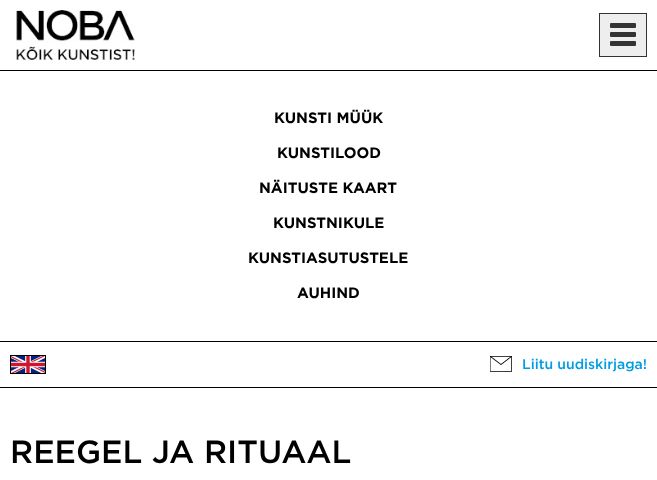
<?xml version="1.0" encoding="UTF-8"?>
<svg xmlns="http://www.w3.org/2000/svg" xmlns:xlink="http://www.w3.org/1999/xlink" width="657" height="480">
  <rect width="100%" height="100%" fill="#ffffff" />
  <rect y="70" width="657" height="1" fill="#000000" />
  <image x="16" y="10" width="119" height="50" xlink:href="image1.png" />
  <rect x="599.5" y="13.5" width="47" height="43" fill="#eeeeee" stroke="#333333" />
  <rect x="610" y="23" width="26" height="5" rx="1" fill="#333333" />
  <rect x="610" y="32" width="26" height="5" rx="1" fill="#333333" />
  <rect x="610" y="41" width="26" height="5" rx="1" fill="#333333" />
  <rect y="341" width="657" height="1" fill="#000000" />
  <rect y="387" width="657" height="1" fill="#000000" />
  <image x="11" y="356" width="34" height="17" xlink:href="image2.png" />
  <rect x="10.5" y="355.5" width="35" height="18" fill="none" stroke="#000000" />
  <image x="490" y="356" width="22" height="16" xlink:href="image3.png" />
  <text x="274" y="123" style="font-family: Gotham; font-size: 15px; font-weight: bold; fill: #000000">KUNSTI MÜÜK</text>
  <text x="277" y="158" style="font-family: Gotham; font-size: 15px; font-weight: bold; fill: #000000">KUNSTILOOD</text>
  <text x="259" y="193" style="font-family: Gotham; font-size: 15px; font-weight: bold; fill: #000000">NÄITUSTE KAART</text>
  <text x="273" y="228" style="font-family: Gotham; font-size: 15px; font-weight: bold; fill: #000000">KUNSTNIKULE</text>
  <text x="248" y="263" style="font-family: Gotham; font-size: 15px; font-weight: bold; fill: #000000">KUNSTIASUTUSTELE</text>
  <text x="297" y="298" style="font-family: Gotham; font-size: 15px; font-weight: bold; fill: #000000">AUHIND</text>
  <text x="522" y="369" style="font-family: Gotham; font-size: 14px; font-weight: 500; fill: #009de2">Liitu uudiskirjaga!</text>
  <text x="10" y="463" style="font-family: Gotham; font-size: 32px; font-weight: 500; fill: #000000">REEGEL JA RITUAAL</text>
</svg>
